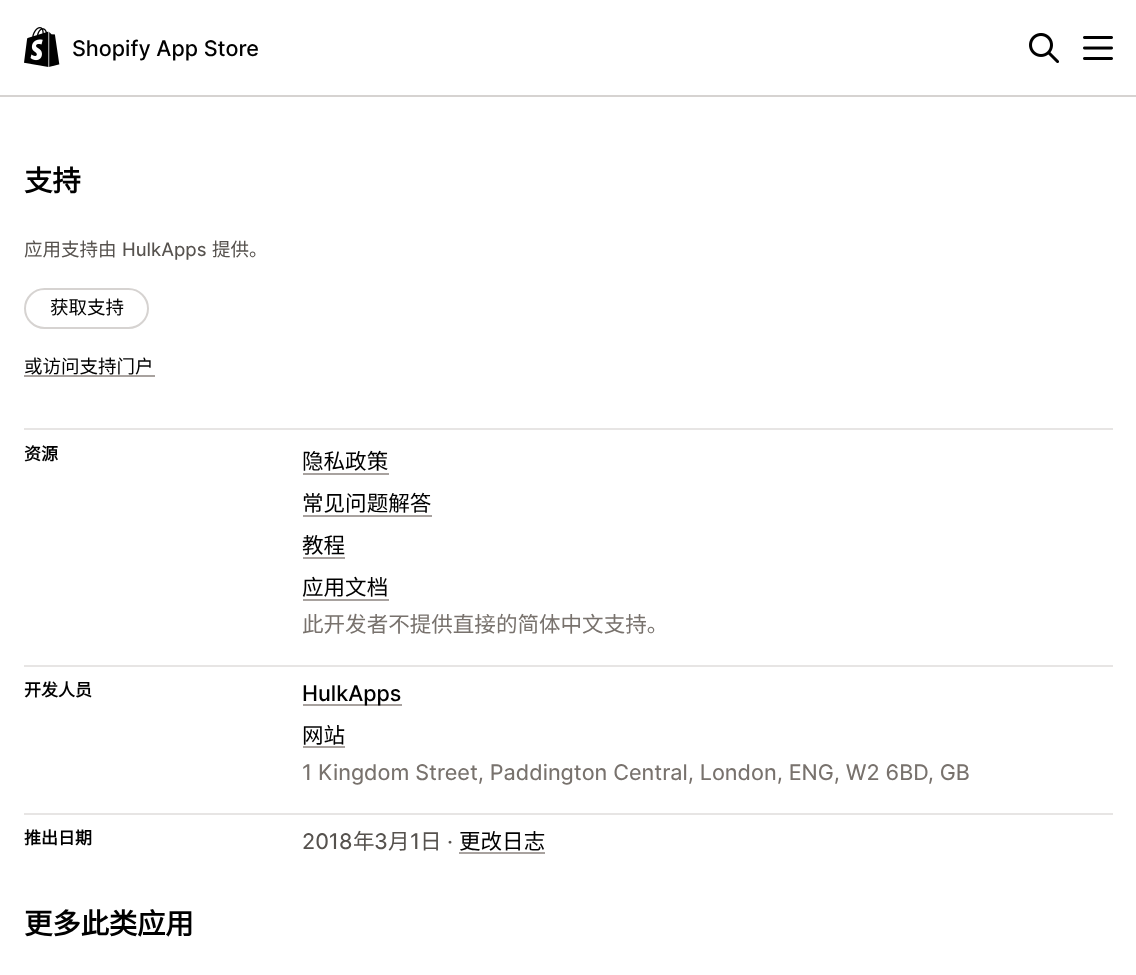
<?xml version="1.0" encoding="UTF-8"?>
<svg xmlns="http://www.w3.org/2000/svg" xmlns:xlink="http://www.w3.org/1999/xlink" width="1136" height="975">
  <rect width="100%" height="100%" fill="#ffffff" />
  <rect y="95" width="1136" height="2" fill="#d6d3d1" />
  <image x="24" y="27" width="36" height="40" xlink:href="image1.png" />
  <image x="1029" y="33" width="30" height="30" xlink:href="image2.png" />
  <image x="1083" y="36" width="30" height="24" xlink:href="image3.png" />
  <rect x="25" y="289" width="123" height="39" rx="19.5" fill="none" stroke="#d6d3d1" stroke-width="2" />
  <rect x="24" y="375" width="131" height="2" fill="#a8a29f" />
  <rect x="24" y="428" width="1089" height="2" fill="#e7e5e4" />
  <rect x="303" y="473" width="86" height="2" fill="#a8a29f" />
  <rect x="303" y="515" width="129" height="2" fill="#a8a29f" />
  <rect x="303" y="557" width="42" height="2" fill="#a8a29f" />
  <rect x="303" y="599" width="86" height="2" fill="#a8a29f" />
  <rect x="24" y="665" width="1089" height="2" fill="#e7e5e4" />
  <rect x="303" y="704" width="99" height="2" fill="#a8a29f" />
  <rect x="303" y="746" width="42" height="2" fill="#a8a29f" />
  <rect x="24" y="813" width="1089" height="2" fill="#e7e5e4" />
  <rect x="459" y="852" width="86" height="2" fill="#a8a29f" />
  <text x="72" y="56" style="font-family: Inter; font-size: 21.55px; font-weight: 500; fill: #000000">Shopify App Store</text>
  <text x="24" y="191" style="font-family: Noto Sans CJK SC; font-size: 28.5px; font-weight: bold; letter-spacing: -0.25px; fill: #000000">支持</text>
  <text x="24" y="256" style="font-family: Noto Sans CJK SC; font-size: 18.5px; fill: #56524e">应用支持由</text>
  <text x="122" y="256" style="font-family: Inter; font-size: 18.5px; fill: #56524e">HulkApps</text>
  <text x="212" y="256" style="font-family: Noto Sans CJK SC; font-size: 18.5px; fill: #56524e">提供。</text>
  <text x="50" y="314" style="font-family: Noto Sans CJK SC; font-size: 18.5px; fill: #000000">获取支持</text>
  <text x="24" y="373" style="font-family: Noto Sans CJK SC; font-size: 18.5px; fill: #000000">或访问支持门户</text>
  <text x="24" y="460" style="font-family: Noto Sans CJK SC; font-size: 17px; font-weight: bold; fill: #000000">资源</text>
  <text x="302" y="469" style="font-family: Noto Sans CJK SC; font-size: 21.55px; fill: #000000">隐私政策</text>
  <text x="302" y="511" style="font-family: Noto Sans CJK SC; font-size: 21.55px; fill: #000000">常见问题解答</text>
  <text x="302" y="553" style="font-family: Noto Sans CJK SC; font-size: 21.55px; fill: #000000">教程</text>
  <text x="302" y="595" style="font-family: Noto Sans CJK SC; font-size: 21.55px; fill: #000000">应用文档</text>
  <text x="302" y="632" style="font-family: Noto Sans CJK SC; font-size: 21.55px; fill: #78726d">此开发者不提供直接的简体中文支持。</text>
  <text x="24" y="696" style="font-family: Noto Sans CJK SC; font-size: 17px; font-weight: bold; fill: #000000">开发人员</text>
  <text x="302" y="701" style="font-family: Inter; font-size: 21.55px; font-weight: 500; fill: #000000">HulkApps</text>
  <text x="302" y="743" style="font-family: Noto Sans CJK SC; font-size: 21.55px; fill: #000000">网站</text>
  <text x="302" y="780" style="font-family: Inter; font-size: 21.55px; fill: #78726d">1 Kingdom Street, Paddington Central, London, ENG, W2 6BD, GB</text>
  <text x="24" y="844" style="font-family: Noto Sans CJK SC; font-size: 17px; font-weight: bold; fill: #000000">推出日期</text>
  <text x="302" y="849" style="font-family: Inter; font-size: 21.55px; fill: #56524e">2018</text>
  <text x="353" y="849" style="font-family: Noto Sans CJK SC; font-size: 21.55px; fill: #56524e">年</text>
  <text x="374" y="849" style="font-family: Inter; font-size: 21.55px; fill: #56524e">3</text>
  <text x="388" y="849" style="font-family: Noto Sans CJK SC; font-size: 21.55px; fill: #56524e">月</text>
  <text x="410" y="849" style="font-family: Inter; font-size: 21.55px; fill: #56524e">1</text>
  <text x="420" y="849" style="font-family: Noto Sans CJK SC; font-size: 21.55px; fill: #56524e">日</text>
  <text x="447" y="849" style="font-family: Inter; font-size: 21.55px; fill: #56524e">·</text>
  <text x="459" y="849" style="font-family: Noto Sans CJK SC; font-size: 21.55px; fill: #000000">更改日志</text>
  <text x="24" y="934" style="font-family: Noto Sans CJK SC; font-size: 28.5px; font-weight: bold; letter-spacing: -0.25px; fill: #000000">更多此类应用</text>
</svg>
